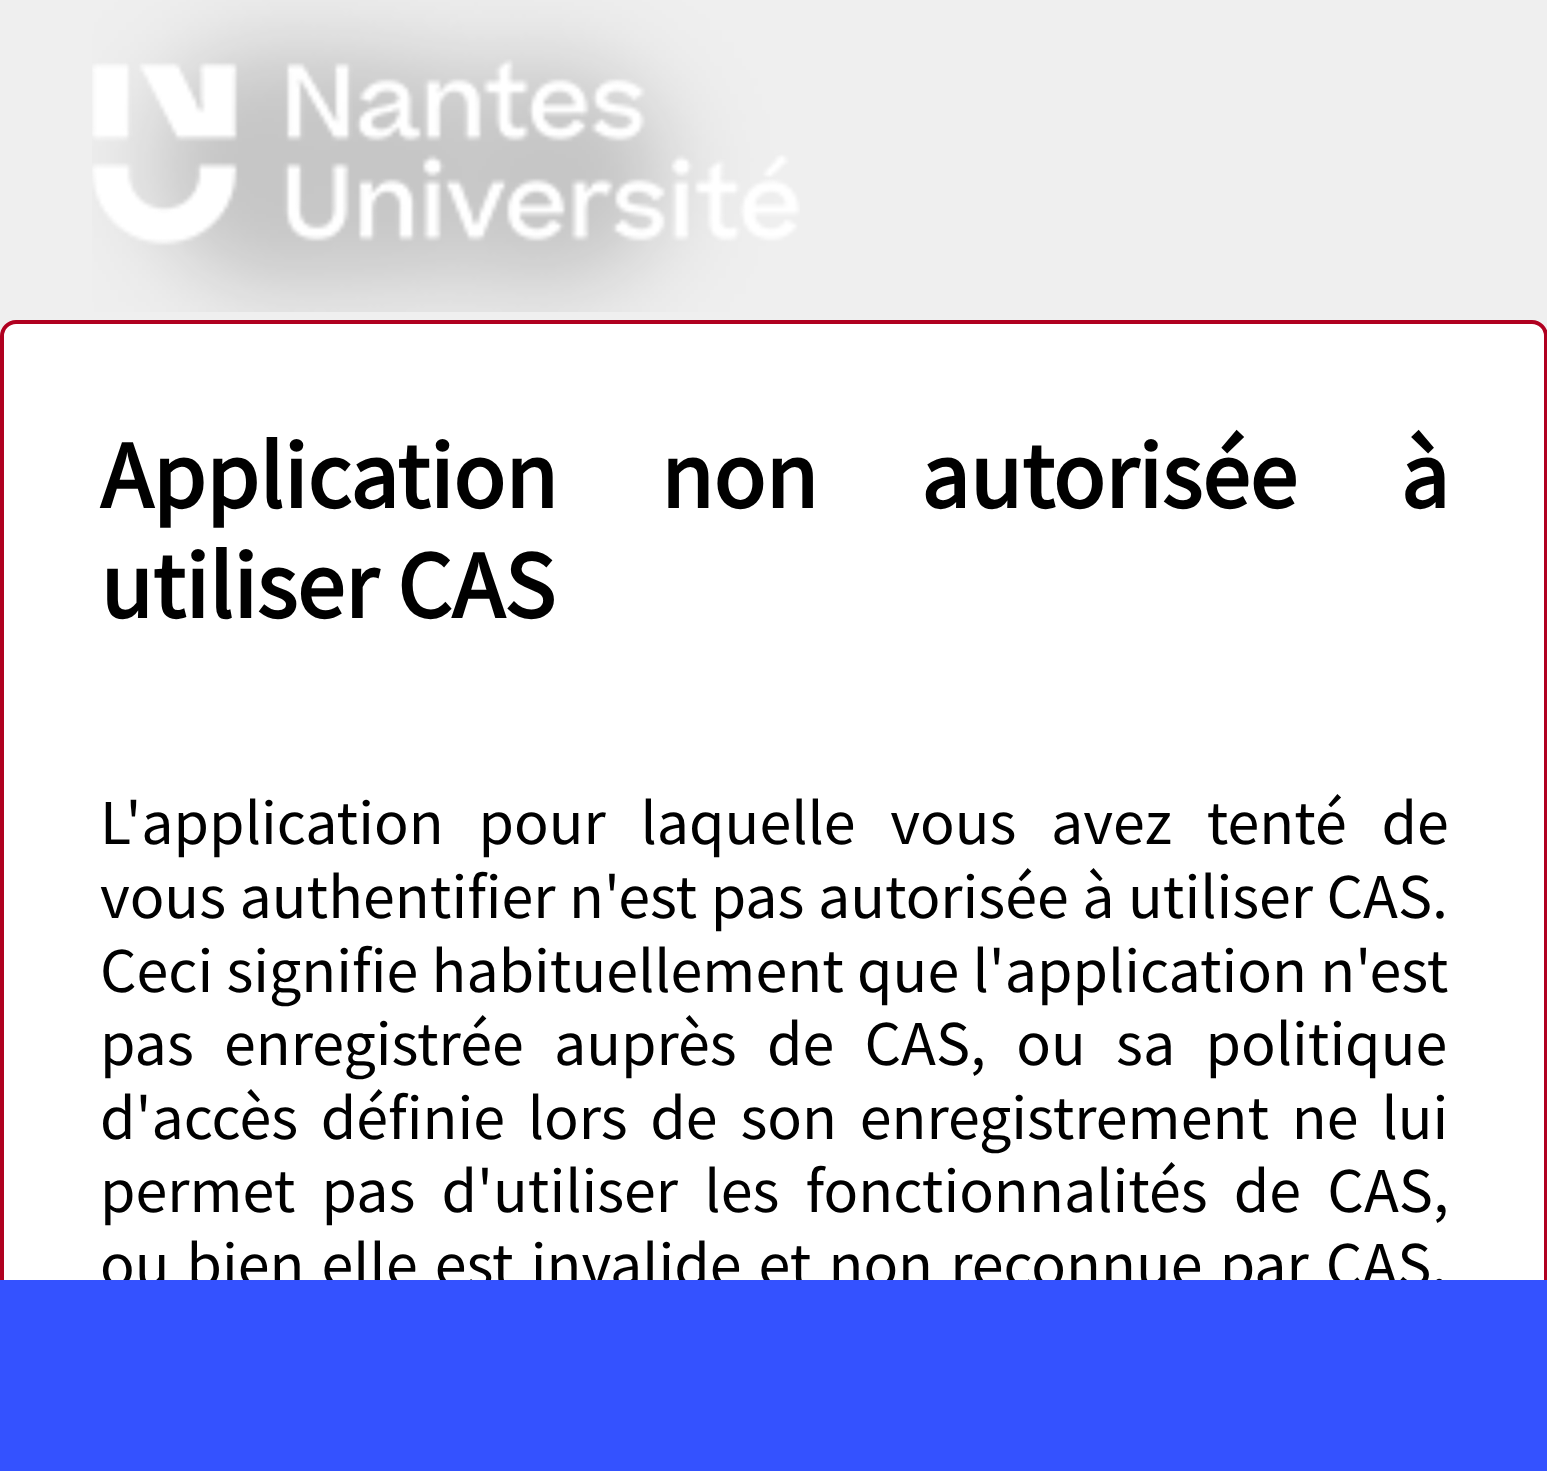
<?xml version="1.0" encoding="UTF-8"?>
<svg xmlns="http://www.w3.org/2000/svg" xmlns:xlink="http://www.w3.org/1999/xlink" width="1547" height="1471">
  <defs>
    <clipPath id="clip1"><rect width="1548" height="1280" /></clipPath>
  </defs>
  <rect width="100%" height="100%" fill="#efefef" />
  <image x="92" y="0" width="708" height="312" xlink:href="image1.png" />
  <path d="M 16 320 h 1516 c 9 0 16 7 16 16 v 944 h -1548 v -944 c 0 -9 7 -16 16 -16 z" fill="#ffffff" />
  <rect y="1280" width="1547" height="191" fill="#3452ff" />
  <g clip-path="url(#clip1)">
    <rect x="2" y="322" width="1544" height="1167" rx="14" fill="none" stroke="#b00020" stroke-width="4" />
  </g>
  <text x="100" y="508" word-spacing="84" style="font-family: Source Sans Pro; font-size: 96px; font-weight: bold; fill: #000000">Application non autorisée à</text>
  <text x="100" y="618" style="font-family: Source Sans Pro; font-size: 96px; font-weight: bold; fill: #000000">utiliser CAS</text>
  <text x="100" y="844" word-spacing="22" style="font-family: Source Sans Pro; font-size: 64px; fill: #000000">L'application pour laquelle vous avez tenté de</text>
  <text x="100" y="918" word-spacing="0.75" style="font-family: Source Sans Pro; font-size: 64px; fill: #000000">vous authentifier n'est pas autorisée à utiliser CAS.</text>
  <text x="100" y="992" word-spacing="0.5" style="font-family: Source Sans Pro; font-size: 64px; fill: #000000">Ceci signifie habituellement que l'application n'est</text>
  <text x="100" y="1065" word-spacing="17.5" style="font-family: Source Sans Pro; font-size: 64px; fill: #000000">pas enregistrée auprès de CAS, ou sa politique</text>
  <text x="100" y="1139" word-spacing="10" style="font-family: Source Sans Pro; font-size: 64px; fill: #000000">d'accès définie lors de son enregistrement ne lui</text>
  <text x="100" y="1212" word-spacing="13.5" style="font-family: Source Sans Pro; font-size: 64px; fill: #000000">permet pas d'utiliser les fonctionnalités de CAS,</text>
  <g clip-path="url(#clip1)">
    <text x="100" y="1286" word-spacing="4.25" style="font-family: Source Sans Pro; font-size: 64px; fill: #000000">ou bien elle est invalide et non reconnue par CAS.</text>
  </g>
</svg>
